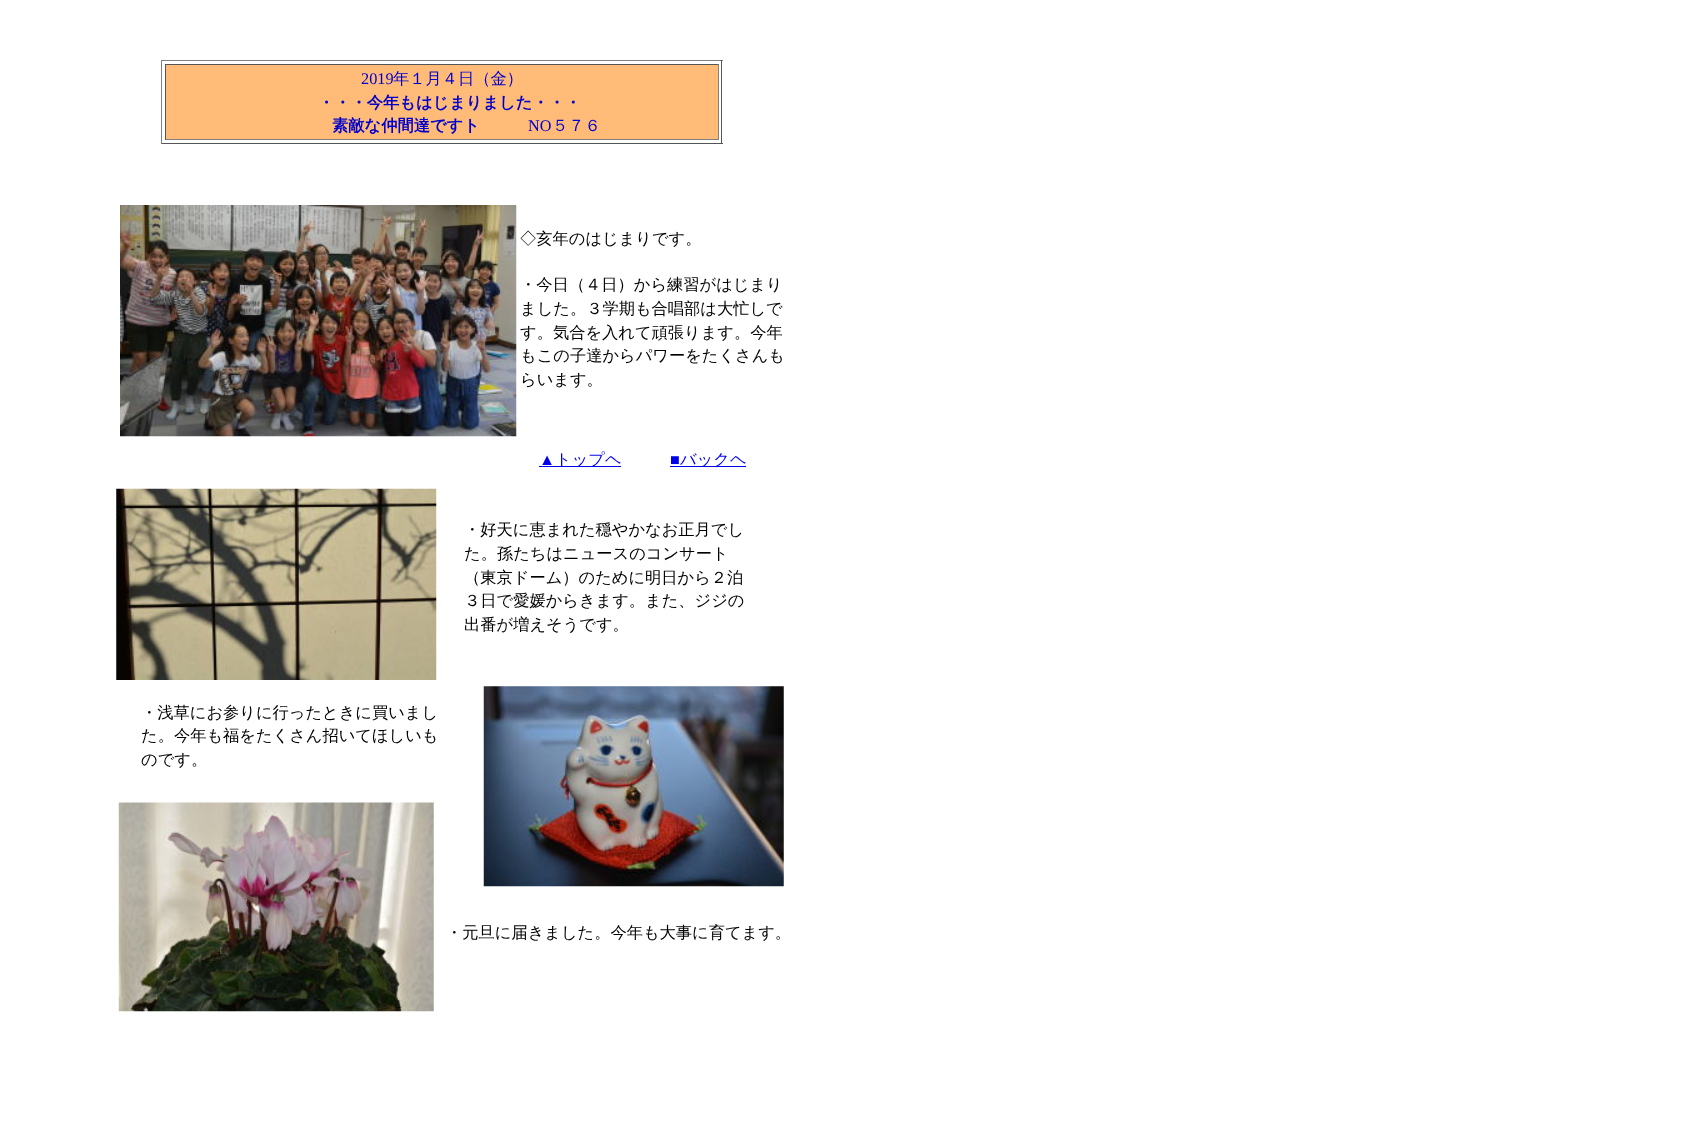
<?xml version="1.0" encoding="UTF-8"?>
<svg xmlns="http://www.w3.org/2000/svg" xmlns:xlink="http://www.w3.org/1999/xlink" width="1703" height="1127">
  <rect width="100%" height="100%" fill="#ffffff" />
  <rect x="161" y="60" width="562" height="1" fill="#808080" />
  <rect x="721" y="60" width="1" height="84" fill="#555555" />
  <rect x="161" y="143" width="562" height="1" fill="#555555" />
  <rect x="161" y="60" width="1" height="84" fill="#808080" />
  <rect x="166" y="65" width="552" height="74" fill="#ffbb77" />
  <rect x="165" y="64" width="554" height="1" fill="#555555" />
  <rect x="718" y="64" width="1" height="76" fill="#808080" />
  <rect x="165" y="139" width="554" height="1" fill="#808080" />
  <rect x="165" y="64" width="1" height="76" fill="#555555" />
  <image x="120" y="205" width="397" height="232" xlink:href="image1.png" />
  <rect x="539" y="466" width="82" height="1" fill="#0000ee" />
  <rect x="670" y="466" width="76" height="1" fill="#0000ee" />
  <image x="116" y="488" width="321" height="192" xlink:href="image2.png" />
  <image x="483" y="686" width="301" height="201" xlink:href="image3.png" />
  <image x="118" y="802" width="316" height="210" xlink:href="image4.png" />
  <text x="361" y="84" style="font-family: Liberation Serif; font-size: 16.25px; fill: #0000cc">2019</text>
  <text x="393" y="84" style="font-family: WenQuanYi Zen Hei; font-size: 16.25px; font-weight: 500; fill: #0000cc">年１月４日（金）</text>
  <text x="318" y="108" style="font-family: WenQuanYi Zen Hei; font-size: 16.25px; font-weight: bold; fill: #0000cc">・・・今年もはじまりました・・・</text>
  <text x="332" y="131" style="font-family: WenQuanYi Zen Hei; font-size: 16.25px; font-weight: bold; fill: #0000cc">素敵な仲間達ですト</text>
  <text x="528" y="131" style="font-family: Liberation Serif; font-size: 16.25px; fill: #0000cc">NO</text>
  <text x="552" y="131" style="font-family: WenQuanYi Zen Hei; font-size: 16.25px; font-weight: 500; fill: #0000cc">５７６</text>
  <text x="520" y="244" style="font-family: WenQuanYi Zen Hei; font-size: 16.25px; font-weight: 500; fill: #000000">◇亥年のはじまりです。</text>
  <text x="520" y="290" style="font-family: WenQuanYi Zen Hei; font-size: 16.25px; font-weight: 500; fill: #000000">・今日（４日）から練習がはじまり</text>
  <text x="520" y="314" style="font-family: WenQuanYi Zen Hei; font-size: 16.25px; font-weight: 500; fill: #000000">ました。３学期も合唱部は大忙しで</text>
  <text x="520" y="338" style="font-family: WenQuanYi Zen Hei; font-size: 16.25px; font-weight: 500; fill: #000000">す。気合を入れて頑張ります。今年</text>
  <text x="520" y="361" style="font-family: WenQuanYi Zen Hei; font-size: 16.25px; font-weight: 500; fill: #000000">もこの子達からパワーをたくさんも</text>
  <text x="520" y="385" style="font-family: WenQuanYi Zen Hei; font-size: 16.25px; font-weight: 500; fill: #000000">らいます。</text>
  <text x="539" y="465" style="font-family: Liberation Serif; font-size: 16.25px; fill: #0000ee">▲</text>
  <text x="555" y="465" style="font-family: WenQuanYi Zen Hei; font-size: 16.25px; font-weight: 500; fill: #0000ee">トップヘ</text>
  <text x="670" y="465" style="font-family: Liberation Serif; font-size: 16.25px; fill: #0000ee">■</text>
  <text x="680" y="465" style="font-family: WenQuanYi Zen Hei; font-size: 16.25px; font-weight: 500; fill: #0000ee">バックヘ</text>
  <text x="464" y="535" style="font-family: WenQuanYi Zen Hei; font-size: 16.25px; font-weight: 500; fill: #000000">・好天に恵まれた穏やかなお正月でし</text>
  <text x="464" y="559" style="font-family: WenQuanYi Zen Hei; font-size: 16.25px; font-weight: 500; fill: #000000">た。孫たちはニュースのコンサート</text>
  <text x="464" y="583" style="font-family: WenQuanYi Zen Hei; font-size: 16.25px; font-weight: 500; fill: #000000">（東京ドーム）のために明日から２泊</text>
  <text x="464" y="606" style="font-family: WenQuanYi Zen Hei; font-size: 16.25px; font-weight: 500; fill: #000000">３日で愛媛からきます。また、ジジの</text>
  <text x="464" y="630" style="font-family: WenQuanYi Zen Hei; font-size: 16.25px; font-weight: 500; fill: #000000">出番が増えそうです。</text>
  <text x="141" y="718" style="font-family: WenQuanYi Zen Hei; font-size: 16.25px; font-weight: 500; fill: #000000">・浅草にお参りに行ったときに買いまし</text>
  <text x="141" y="741" style="font-family: WenQuanYi Zen Hei; font-size: 16.25px; font-weight: 500; fill: #000000">た。今年も福をたくさん招いてほしいも</text>
  <text x="141" y="765" style="font-family: WenQuanYi Zen Hei; font-size: 16.25px; font-weight: 500; fill: #000000">のです。</text>
  <text x="446" y="938" style="font-family: WenQuanYi Zen Hei; font-size: 16.25px; font-weight: 500; fill: #000000">・元旦に届きました。今年も大事に育てます。</text>
</svg>
